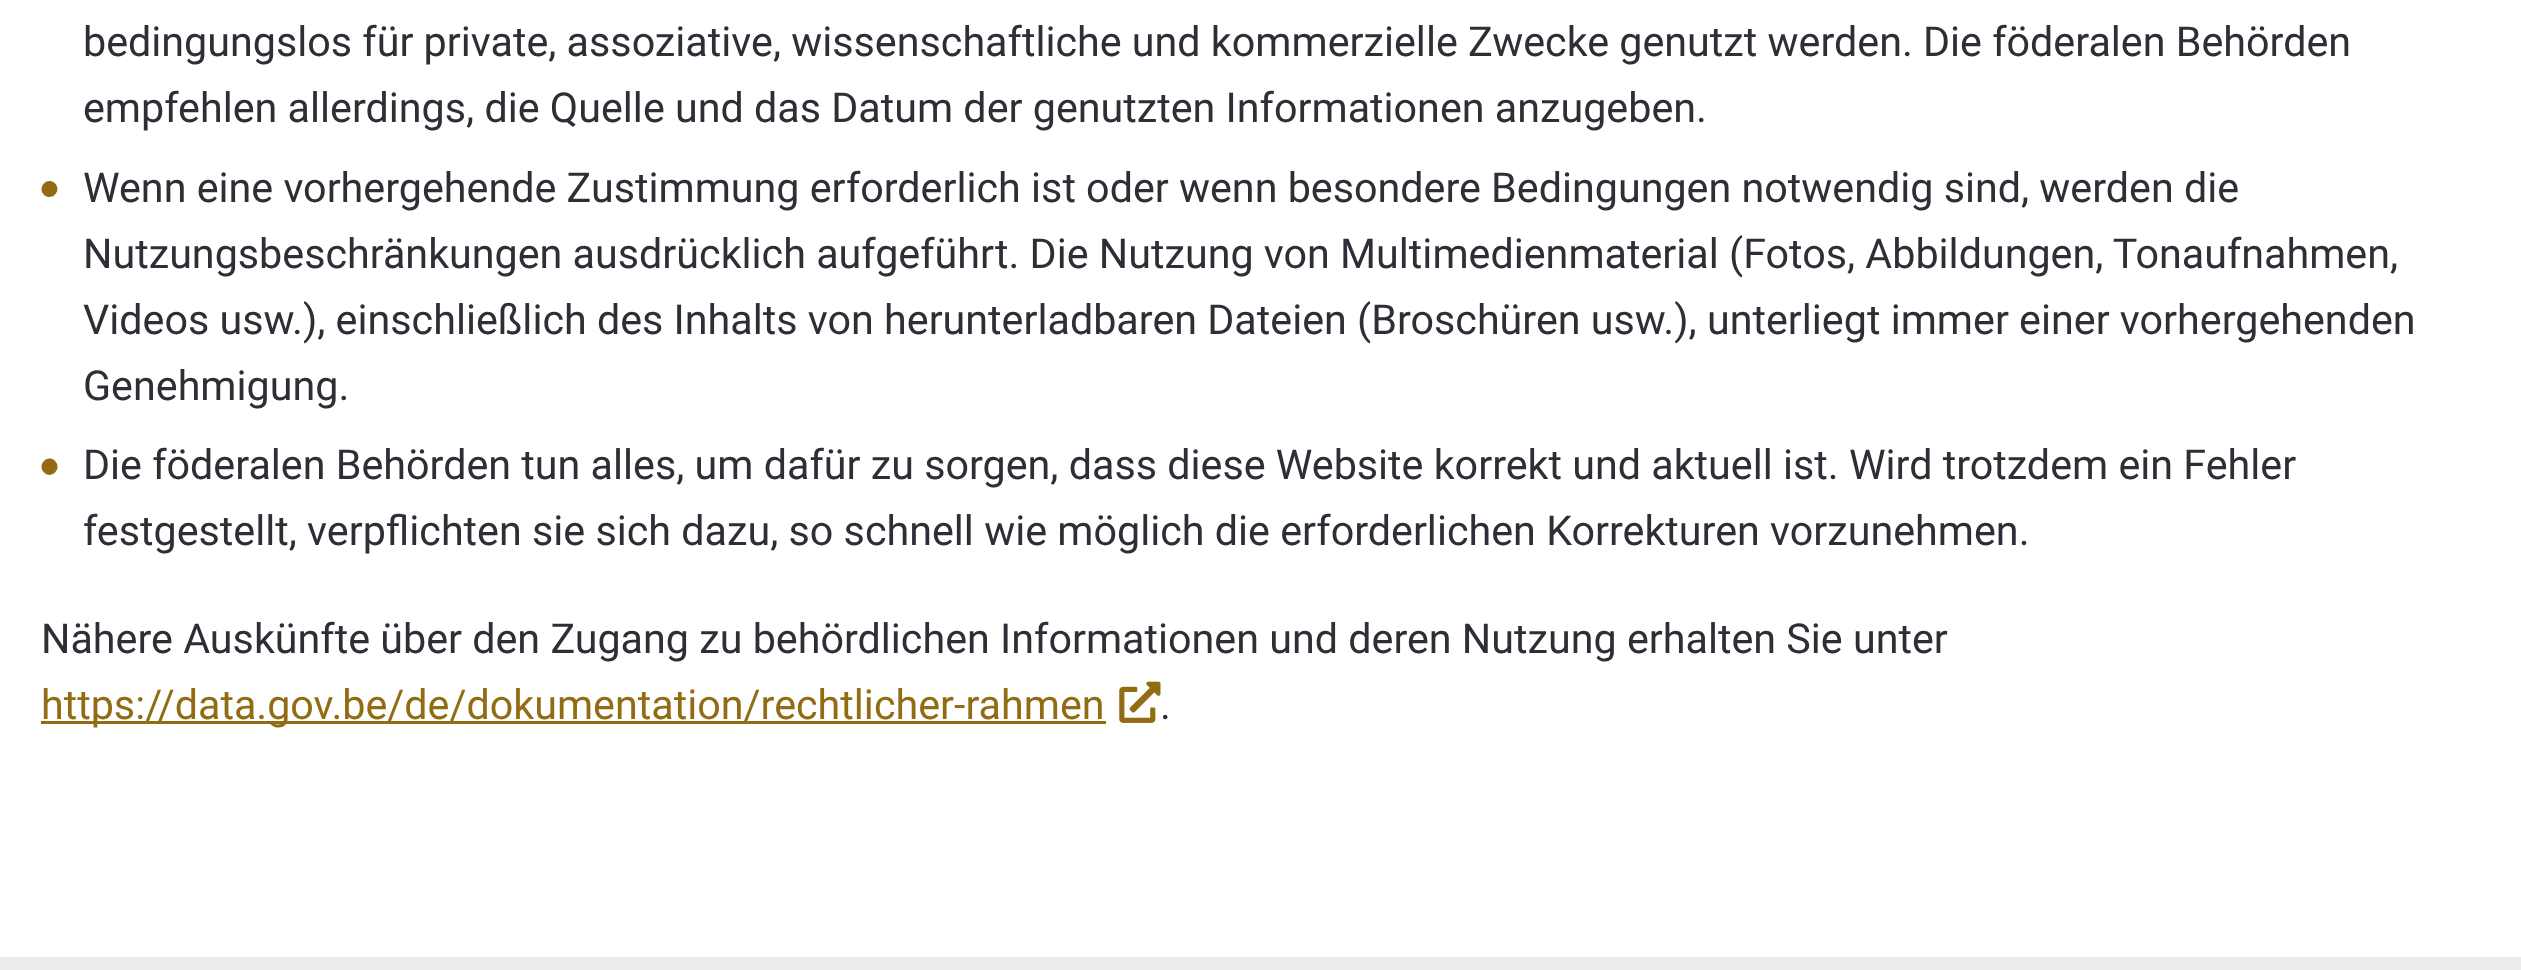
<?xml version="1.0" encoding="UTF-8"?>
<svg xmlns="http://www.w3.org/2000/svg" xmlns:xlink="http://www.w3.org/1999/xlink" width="2521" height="970">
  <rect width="100%" height="100%" fill="#ffffff" />
  <path d="M 44 183.5 c 7.5 -7.5 18.5 4 11 11 c -7.5 7.5 -18.5 -3.5 -11 -11 z" fill="#926c13" />
  <path d="M 44 461 c 7.5 -7.5 18.5 4 11 11.5 c -7.5 7.5 -18.5 -4 -11 -11.5 z" fill="#926c13" />
  <rect x="41" y="721" width="1065" height="3" fill="#926c13" />
  <image x="1119" y="681" width="42" height="42" xlink:href="image1.png" />
  <rect y="957" width="2521" height="13" fill="#ececec" />
  <text x="83" y="56" style="font-family: Roboto; font-size: 41.25px; fill: #2f2d35">bedingungslos für private, assoziative, wissenschaftliche und kommerzielle Zwecke genutzt werden. Die föderalen Behörden</text>
  <text x="83" y="122" style="font-family: Roboto; font-size: 41.25px; fill: #2f2d35">empfehlen allerdings, die Quelle und das Datum der genutzten Informationen anzugeben.</text>
  <text x="83" y="202" style="font-family: Roboto; font-size: 41.25px; fill: #2f2d35">Wenn eine vorhergehende Zustimmung erforderlich ist oder wenn besondere Bedingungen notwendig sind, werden die</text>
  <text x="83" y="268" style="font-family: Roboto; font-size: 41.25px; fill: #2f2d35">Nutzungsbeschränkungen ausdrücklich aufgeführt. Die Nutzung von Multimedienmaterial (Fotos, Abbildungen, Tonaufnahmen,</text>
  <text x="83" y="334" style="font-family: Roboto; font-size: 41.25px; fill: #2f2d35">Videos usw.), einschließlich des Inhalts von herunterladbaren Dateien (Broschüren usw.), unterliegt immer einer vorhergehenden</text>
  <text x="83" y="400" style="font-family: Roboto; font-size: 41.25px; fill: #2f2d35">Genehmigung.</text>
  <text x="83" y="479" style="font-family: Roboto; font-size: 41.25px; fill: #2f2d35">Die föderalen Behörden tun alles, um dafür zu sorgen, dass diese Website korrekt und aktuell ist. Wird trotzdem ein Fehler</text>
  <text x="83" y="545" style="font-family: Roboto; font-size: 41.25px; fill: #2f2d35">festgestellt, verpflichten sie sich dazu, so schnell wie möglich die erforderlichen Korrekturen vorzunehmen.</text>
  <text x="41" y="653" style="font-family: Roboto; font-size: 41.25px; fill: #2f2d35">Nähere Auskünfte über den Zugang zu behördlichen Informationen und deren Nutzung erhalten Sie unter</text>
  <text x="41" y="719" style="font-family: Roboto; font-size: 41.25px; fill: #926c13">https://data.gov.be/de/dokumentation/rechtlicher-rahmen</text>
  <text x="1160" y="719" style="font-family: Roboto; font-size: 41.25px; fill: #2f2d35">.</text>
</svg>
